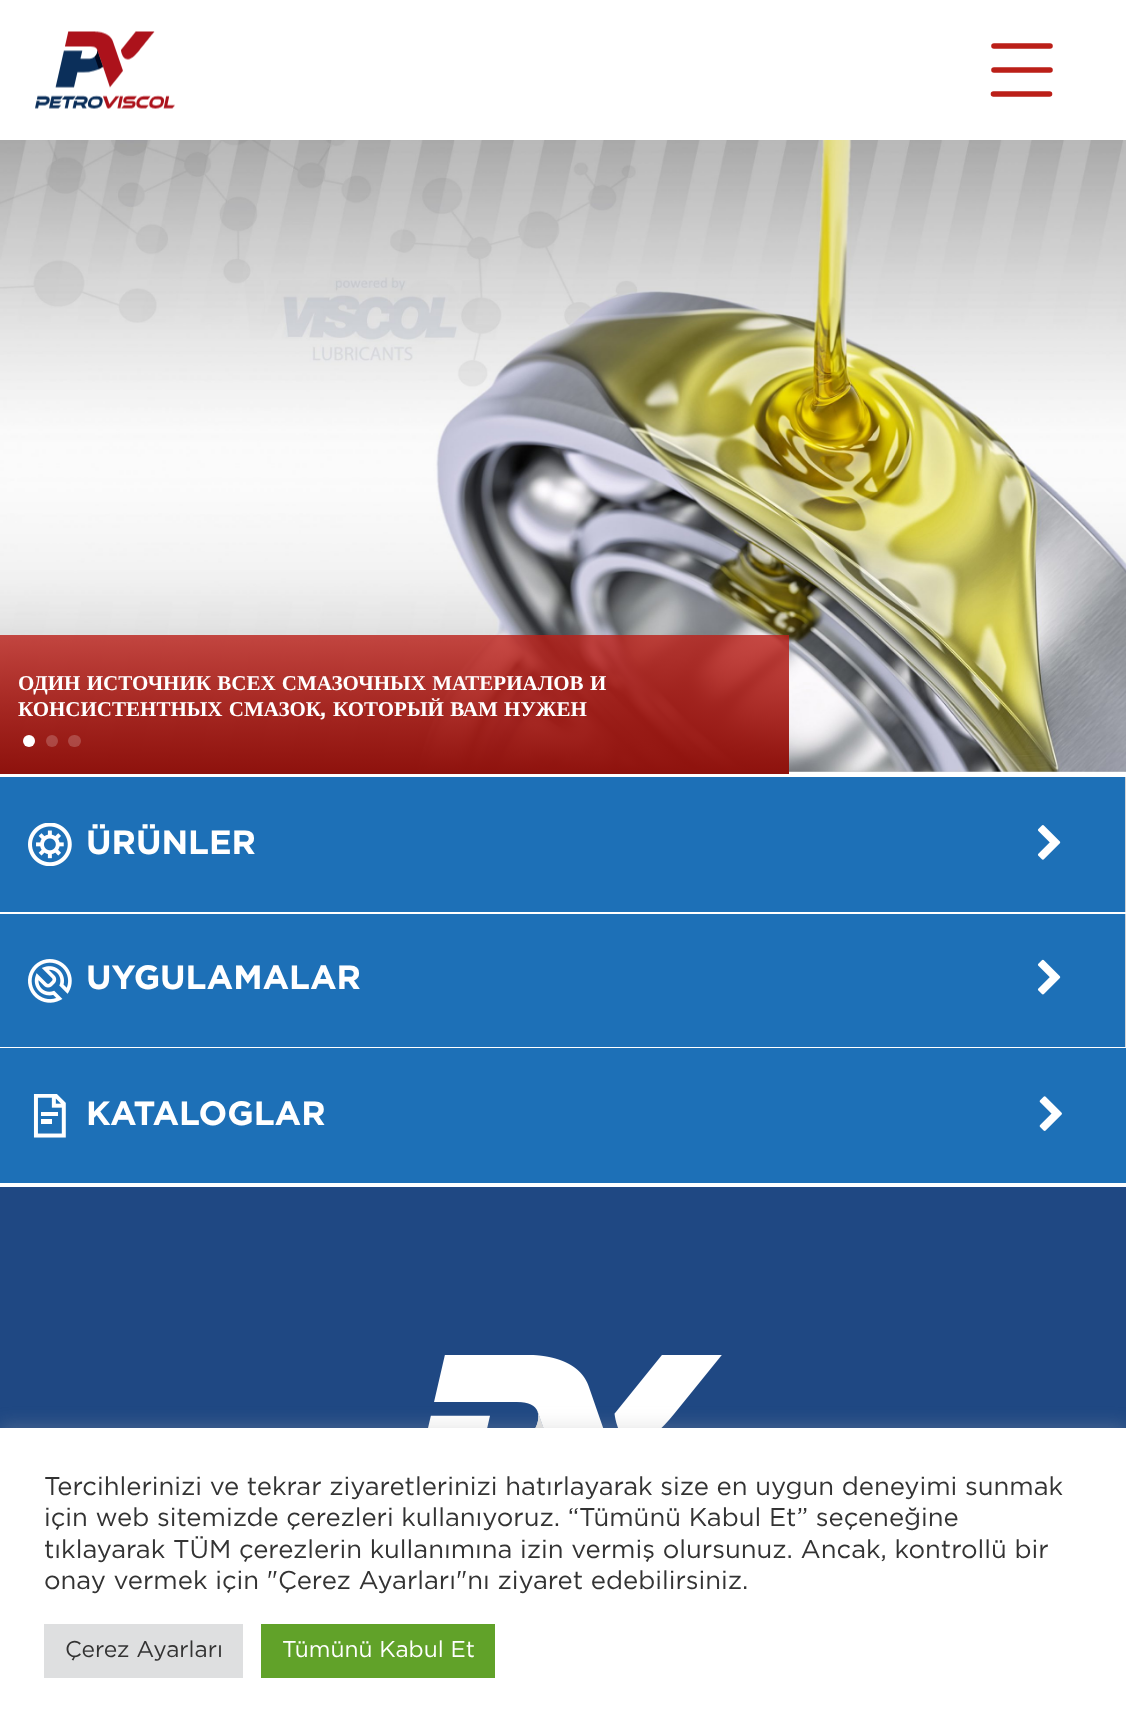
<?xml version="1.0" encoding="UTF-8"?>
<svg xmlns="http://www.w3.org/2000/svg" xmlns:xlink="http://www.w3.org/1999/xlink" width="1126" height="1730">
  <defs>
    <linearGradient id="g1" gradientUnits="userSpaceOnUse" x1="395" y1="635" x2="395" y2="774"><stop offset="0" stop-color="#bb1f18" stop-opacity="0.8" /><stop offset="1" stop-color="#8e120d" /></linearGradient>
  </defs>
  <rect width="100%" height="100%" fill="#ffffff" />
  <image x="35" y="31" width="140" height="78" xlink:href="image1.png" />
  <path d="M 1050 46 h -56 m 56 24 h -56 m 55.5 24 h -56" fill="none" stroke="#bb1f18" stroke-width="5.6" stroke-linecap="round" />
  <image x="0" y="140" width="1126" height="632" xlink:href="image2.png" />
  <rect y="635" width="789" height="139" fill="url(#g1)" />
  <circle cx="29" cy="741" r="6" fill="#ffffff" />
  <circle cx="52" cy="741" r="6" fill="#ffffff" fill-opacity="0.2" />
  <rect x="68" y="735" width="13" height="12" rx="6" fill="#ffffff" fill-opacity="0.2" />
  <rect y="777" width="1125" height="135" fill="#1d70b7" />
  <rect x="1125" y="777" width="1" height="271" fill="#d3d3d3" />
  <rect x="1125" y="912" width="1" height="2" fill="#ffffff" />
  <image x="28" y="823" width="44" height="43" xlink:href="image3.png" />
  <image x="1037" y="825" width="24" height="35" xlink:href="image4.png" />
  <rect y="914" width="1125" height="133" fill="#1d70b7" />
  <rect x="1125" y="1047" width="1" height="1" fill="#ffffff" />
  <image x="28" y="959" width="44" height="44" xlink:href="image5.png" />
  <image x="1037" y="959" width="24" height="36" xlink:href="image6.png" />
  <rect y="1048" width="1126" height="135" fill="#1d70b7" />
  <image x="33" y="1094" width="33" height="44" xlink:href="image7.png" />
  <image x="1039" y="1096" width="23" height="35" xlink:href="image8.png" />
  <rect y="1187" width="1126" height="241" fill="#1f4883" />
  <image x="428" y="1355" width="294" height="73" xlink:href="image9.png" />
  <rect y="1426" width="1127" height="303" fill="#acabab" fill-opacity="0.3" filter="blur(9px)" />
  <rect y="1428" width="1126" height="302" fill="#ffffff" />
  <rect x="44" y="1624" width="199" height="54" fill="#dedfe0" />
  <rect x="261" y="1624" width="234" height="54" fill="#61a229" />
  <text x="18" y="690" word-spacing="1" style="font-family: Liberation Serif; font-size: 21px; font-weight: bold; fill: #ffffff">ОДИН ИСТОЧНИК ВСЕХ СМАЗОЧНЫХ МАТЕРИАЛОВ И</text>
  <text x="18" y="716" word-spacing="1" style="font-family: Liberation Serif; font-size: 21px; font-weight: bold; fill: #ffffff">КОНСИСТЕНТНЫХ СМАЗОК</text>
  <text x="320" y="716" style="font-family: Gotham; font-size: 21px; font-weight: bold; fill: #ffffff">,</text>
  <text x="333" y="716" word-spacing="1" style="font-family: Liberation Serif; font-size: 21px; font-weight: bold; fill: #ffffff">КОТОРЫЙ ВАМ НУЖЕН</text>
  <text x="86" y="854" style="font-family: Gotham; font-size: 33.75px; font-weight: bold; fill: #ffffff">ÜRÜNLER</text>
  <text x="86" y="989" style="font-family: Gotham; font-size: 33.75px; font-weight: bold; fill: #ffffff">UYGULAMALAR</text>
  <text x="86" y="1125" style="font-family: Gotham; font-size: 33.75px; font-weight: bold; fill: #ffffff">KATALOGLAR</text>
  <text x="44" y="1495" style="font-family: Gotham; font-size: 25.65px; fill: #333333">Tercihlerinizi ve tekrar ziyaretlerinizi hatırlayarak size en uygun deneyimi sunmak</text>
  <text x="44" y="1526" style="font-family: Gotham; font-size: 25.65px; fill: #333333">için web sitemizde çerezleri kullanıyoruz. “Tümünü Kabul Et” seçeneğine</text>
  <text x="44" y="1558" style="font-family: Gotham; font-size: 25.65px; fill: #333333">tıklayarak TÜM çerezlerin kullanımına izin vermiş olursunuz. Ancak, kontrollü bir</text>
  <text x="44" y="1589" style="font-family: Gotham; font-size: 25.65px; fill: #333333">onay vermek için "Çerez Ayarları"nı ziyaret edebilirsiniz.</text>
  <text x="65" y="1657" style="font-family: Gotham; font-size: 22.75px; fill: #333333">Çerez Ayarları</text>
  <text x="282" y="1657" style="font-family: Gotham; font-size: 22.75px; fill: #ffffff">Tümünü Kabul Et</text>
</svg>
